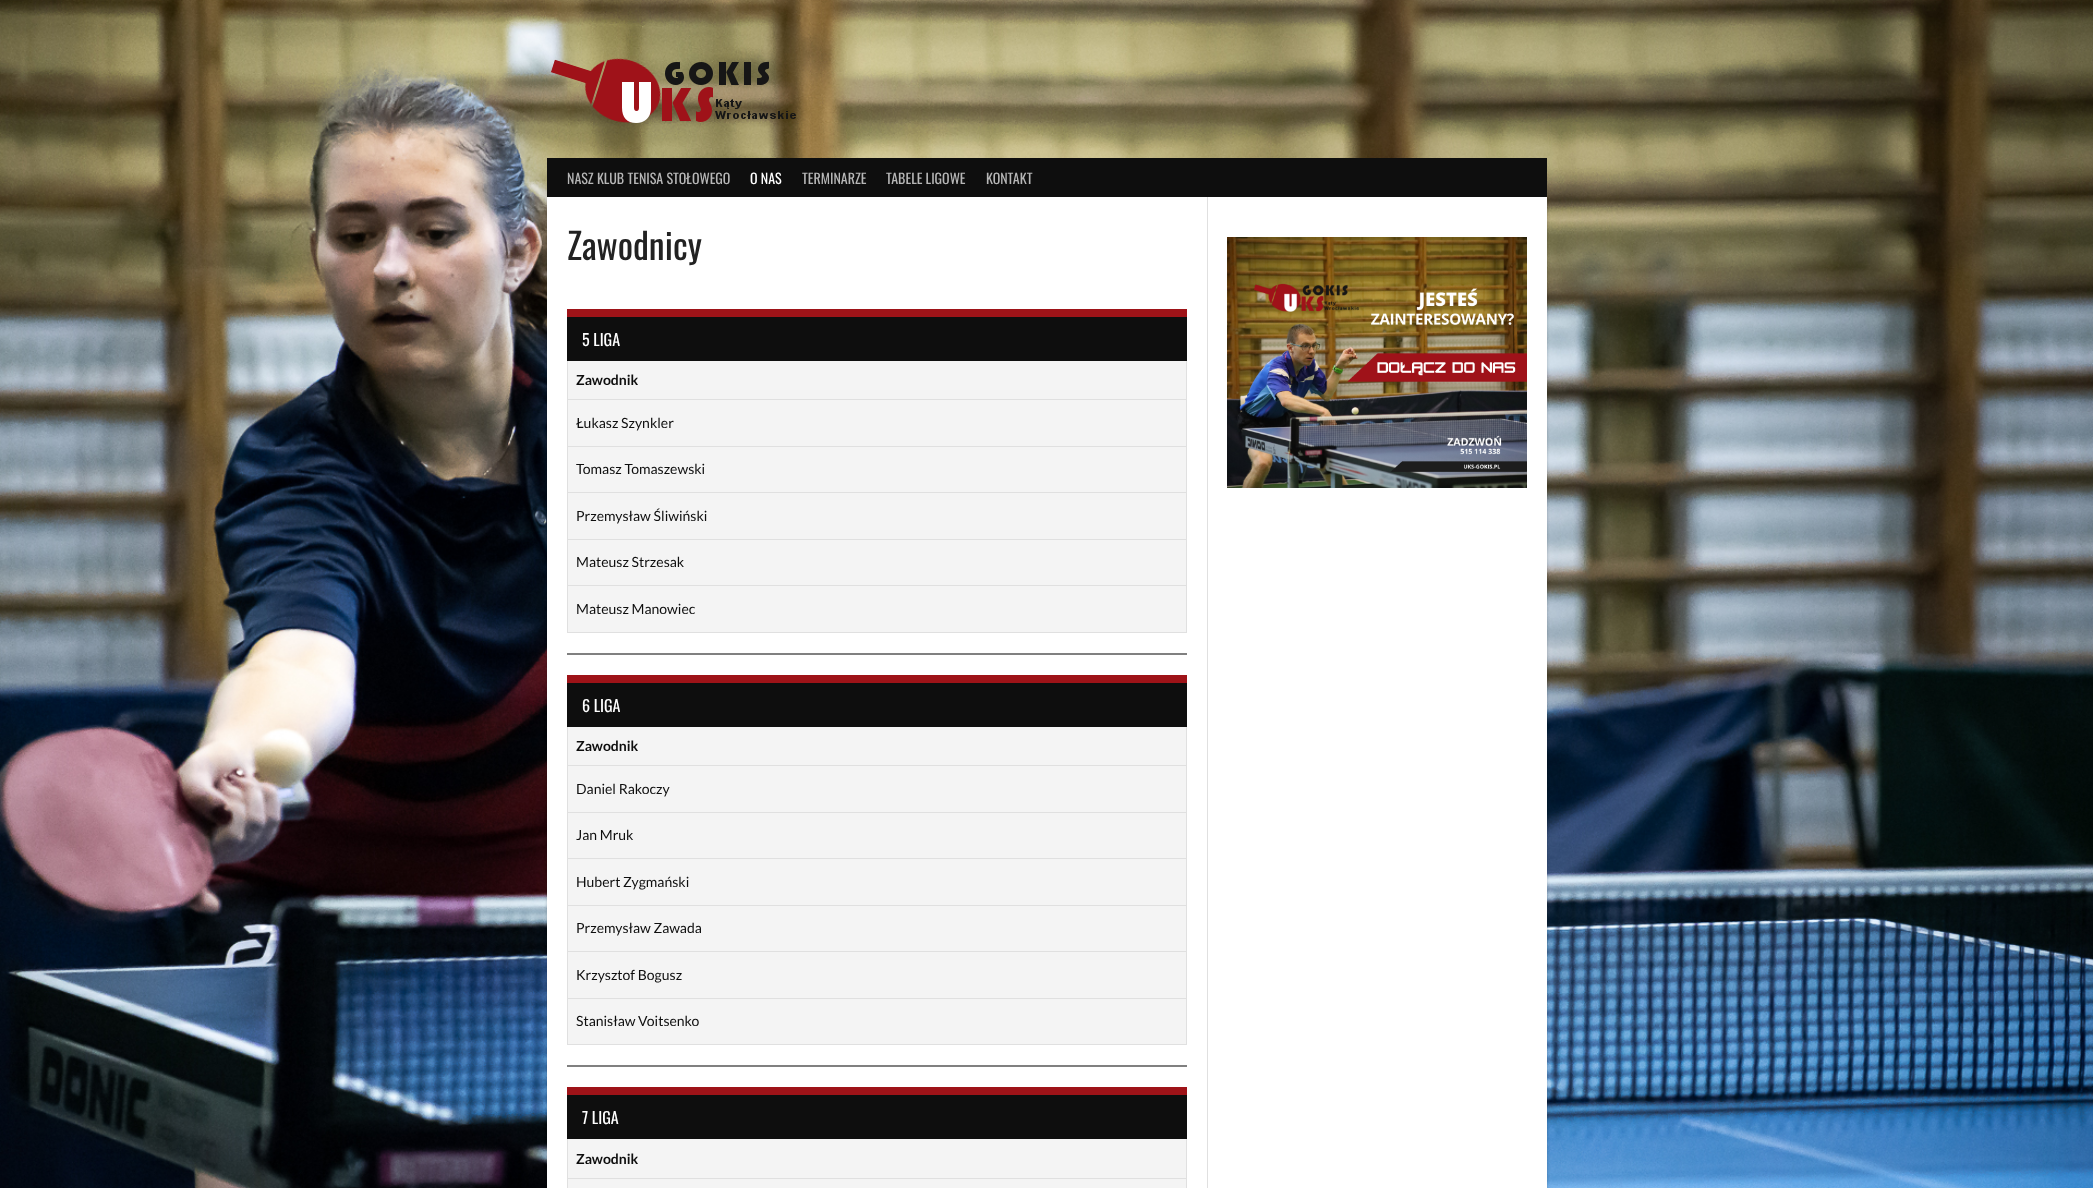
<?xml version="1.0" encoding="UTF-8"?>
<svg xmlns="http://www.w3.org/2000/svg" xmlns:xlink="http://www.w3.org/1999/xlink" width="2093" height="1188">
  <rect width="100%" height="100%" fill="#ffffff" />
  <image x="0" y="0" width="2093" height="1188" xlink:href="image1.png" />
  <image x="551" y="58" width="245" height="65" xlink:href="image2.png" />
  <rect x="547" y="200" width="1000" height="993" fill="#000000" fill-opacity="0.2" filter="blur(1.5px)" />
  <rect x="547" y="158" width="1000" height="39" fill="#0e0e0e" />
  <rect x="547" y="197" width="1000" height="991" fill="#ffffff" />
  <rect x="1207" y="197" width="1" height="991" fill="#e0e0e0" />
  <rect x="1186" y="360" width="1" height="273" fill="#e0e0e0" />
  <rect x="567" y="632" width="620" height="1" fill="#e0e0e0" />
  <rect x="567" y="360" width="1" height="273" fill="#e0e0e0" />
  <rect x="567" y="317" width="620" height="44" fill="#0e0e0e" />
  <rect x="567" y="309" width="620" height="8" fill="#9e1318" />
  <rect x="568" y="361" width="618" height="271" fill="#f4f4f4" />
  <rect x="567" y="399" width="620" height="1" fill="#e0e0e0" />
  <rect x="567" y="446" width="620" height="1" fill="#e0e0e0" />
  <rect x="567" y="492" width="620" height="1" fill="#e0e0e0" />
  <rect x="567" y="539" width="620" height="1" fill="#e0e0e0" />
  <rect x="567" y="585" width="620" height="1" fill="#e0e0e0" />
  <rect x="567" y="653" width="620" height="2" fill="#808080" />
  <rect x="1186" y="726" width="1" height="319" fill="#e0e0e0" />
  <rect x="567" y="1044" width="620" height="1" fill="#e0e0e0" />
  <rect x="567" y="726" width="1" height="319" fill="#e0e0e0" />
  <rect x="567" y="683" width="620" height="44" fill="#0e0e0e" />
  <rect x="567" y="675" width="620" height="8" fill="#9e1318" />
  <rect x="568" y="727" width="618" height="317" fill="#f4f4f4" />
  <rect x="567" y="765" width="620" height="1" fill="#e0e0e0" />
  <rect x="567" y="812" width="620" height="1" fill="#e0e0e0" />
  <rect x="567" y="858" width="620" height="1" fill="#e0e0e0" />
  <rect x="567" y="905" width="620" height="1" fill="#e0e0e0" />
  <rect x="567" y="951" width="620" height="1" fill="#e0e0e0" />
  <rect x="567" y="998" width="620" height="1" fill="#e0e0e0" />
  <rect x="567" y="1065" width="620" height="2" fill="#808080" />
  <rect x="1186" y="1138" width="1" height="50" fill="#e0e0e0" />
  <rect x="567" y="1138" width="1" height="50" fill="#e0e0e0" />
  <rect x="567" y="1095" width="620" height="44" fill="#0e0e0e" />
  <rect x="567" y="1087" width="620" height="8" fill="#9e1318" />
  <rect x="568" y="1139" width="618" height="49" fill="#f4f4f4" />
  <rect x="567" y="1178" width="620" height="1" fill="#e0e0e0" />
  <image x="1227" y="237" width="300" height="251" xlink:href="image3.png" />
  <text x="567" y="184" style="font-family: Oswald; font-size: 14px; fill: #b7b7b7">NASZ KLUB TENISA STOŁOWEGO</text>
  <text x="750" y="184" style="font-family: Oswald; font-size: 14px; fill: #ffffff">O NAS</text>
  <text x="802" y="184" style="font-family: Oswald; font-size: 14px; fill: #b7b7b7">TERMINARZE</text>
  <text x="886" y="184" style="font-family: Oswald; font-size: 14px; fill: #b7b7b7">TABELE LIGOWE</text>
  <text x="986" y="184" style="font-family: Oswald; font-size: 14px; fill: #b7b7b7">KONTAKT</text>
  <text x="567" y="260" style="font-family: Oswald; font-size: 36px; fill: #222222">Zawodnicy</text>
  <text x="582" y="346" style="font-family: Oswald; font-size: 16px; fill: #ffffff">5 LIGA</text>
  <text x="576" y="385" style="font-family: Lato; font-size: 14px; font-weight: bold; fill: #0e0e0e">Zawodnik</text>
  <text x="576" y="428" style="font-family: Lato; font-size: 14px; fill: #0e0e0e">Łukasz Szynkler</text>
  <text x="576" y="474" style="font-family: Lato; font-size: 14px; fill: #0e0e0e">Tomasz Tomaszewski</text>
  <text x="576" y="521" style="font-family: Lato; font-size: 14px; fill: #0e0e0e">Przemysław Śliwiński</text>
  <text x="576" y="567" style="font-family: Lato; font-size: 14px; fill: #0e0e0e">Mateusz Strzesak</text>
  <text x="576" y="614" style="font-family: Lato; font-size: 14px; fill: #0e0e0e">Mateusz Manowiec</text>
  <text x="582" y="712" style="font-family: Oswald; font-size: 16px; fill: #ffffff">6 LIGA</text>
  <text x="576" y="751" style="font-family: Lato; font-size: 14px; font-weight: bold; fill: #0e0e0e">Zawodnik</text>
  <text x="576" y="794" style="font-family: Lato; font-size: 14px; fill: #0e0e0e">Daniel Rakoczy</text>
  <text x="576" y="840" style="font-family: Lato; font-size: 14px; fill: #0e0e0e">Jan Mruk</text>
  <text x="576" y="887" style="font-family: Lato; font-size: 14px; fill: #0e0e0e">Hubert Zygmański</text>
  <text x="576" y="933" style="font-family: Lato; font-size: 14px; fill: #0e0e0e">Przemysław Zawada</text>
  <text x="576" y="980" style="font-family: Lato; font-size: 14px; fill: #0e0e0e">Krzysztof Bogusz</text>
  <text x="576" y="1026" style="font-family: Lato; font-size: 14px; fill: #0e0e0e">Stanisław Voitsenko</text>
  <text x="582" y="1124" style="font-family: Oswald; font-size: 16px; fill: #ffffff">7 LIGA</text>
  <text x="576" y="1164" style="font-family: Lato; font-size: 14px; font-weight: bold; fill: #0e0e0e">Zawodnik</text>
</svg>
